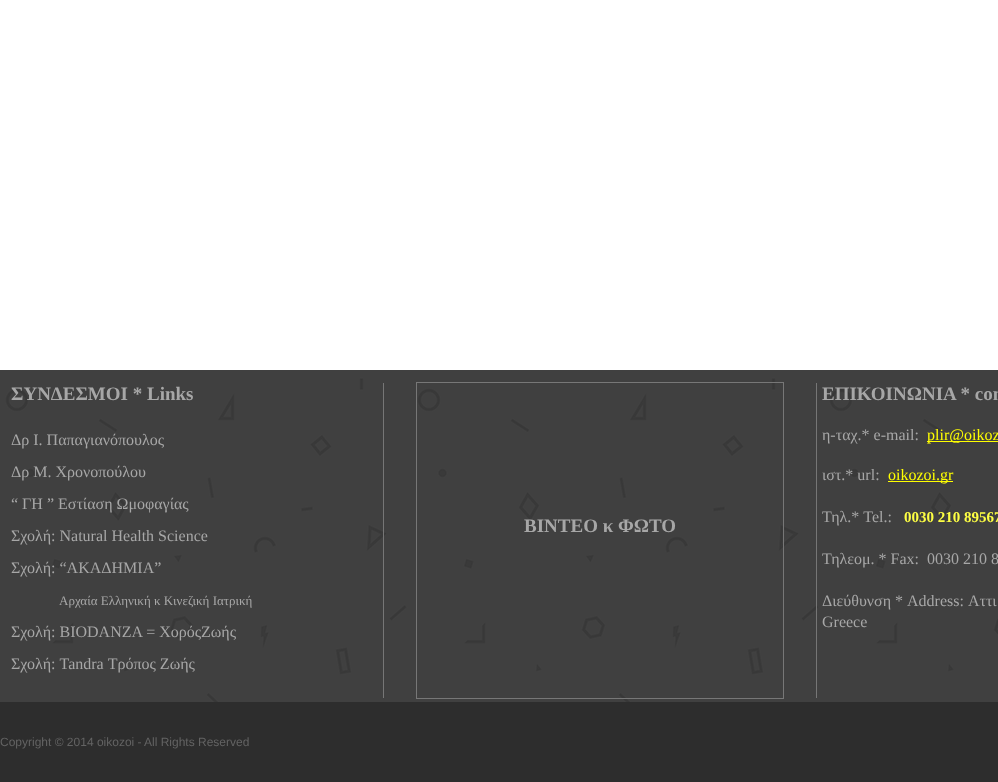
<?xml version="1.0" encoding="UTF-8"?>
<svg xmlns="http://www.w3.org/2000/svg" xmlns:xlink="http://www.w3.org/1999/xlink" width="998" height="782">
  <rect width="100%" height="100%" fill="#ffffff" />
  <image x="0" y="370" width="998" height="332" xlink:href="image1.png" />
  <rect x="383" y="383" width="1" height="315" fill="#767676" />
  <rect x="416.5" y="382.5" width="367" height="316" fill="none" stroke="#777777" />
  <rect x="816" y="383" width="1" height="315" fill="#767676" />
  <rect x="927" y="441" width="71" height="1" fill="#ffff00" />
  <rect x="888" y="481" width="65" height="1" fill="#ffff00" />
  <rect y="702" width="998" height="80" fill="#2d2d2d" />
  <text x="11" y="400" style="font-family: Liberation Serif; font-size: 19px; font-weight: bold; fill: #a7a7a7">ΣΥΝΔΕΣΜΟΙ * Links</text>
  <text x="11" y="445" style="font-family: Liberation Serif; font-size: 16px; fill: #a7a7a7">Δρ Ι. Παπαγιανόπουλος</text>
  <text x="11" y="477" style="font-family: Liberation Serif; font-size: 16px; fill: #a7a7a7">Δρ Μ. Χρονοπούλου</text>
  <text x="11" y="509" style="font-family: Liberation Serif; font-size: 16px; fill: #a7a7a7">“ ΓΗ ” Eστίαση Ωμοφαγίας</text>
  <text x="11" y="541" style="font-family: Liberation Serif; font-size: 16px; fill: #a7a7a7">Σχολή: Νatural Health Science</text>
  <text x="11" y="573" style="font-family: Liberation Serif; font-size: 16px; fill: #a7a7a7">Σχολή: “ΑΚΑΔΗΜΙΑ”</text>
  <text x="59" y="605" style="font-family: Liberation Serif; font-size: 13px; fill: #a7a7a7">Αρχαία Eλληνική κ Κινεζική Iατρική</text>
  <text x="11" y="637" style="font-family: Liberation Serif; font-size: 16px; fill: #a7a7a7">Σχολή: BIODANZA = XορόςZωής</text>
  <text x="11" y="669" style="font-family: Liberation Serif; font-size: 16px; fill: #a7a7a7">Σχολή: Tandra Τρόπος Ζωής</text>
  <text x="524" y="532" style="font-family: Liberation Serif; font-size: 19px; font-weight: bold; fill: #a7a7a7">ΒΙNTEO κ ΦΩΤΟ</text>
  <text x="822" y="400" style="font-family: Liberation Serif; font-size: 19px; font-weight: bold; fill: #a7a7a7">ΕΠΙΚΟΙΝΩΝΙΑ * con</text>
  <text x="822" y="440" style="font-family: Liberation Serif; font-size: 16px; fill: #a7a7a7">η-ταχ.* e-mail:</text>
  <text x="927" y="440" style="font-family: Liberation Serif; font-size: 16px; fill: #ffff00">plir@oikoz</text>
  <text x="822" y="480" style="font-family: Liberation Serif; font-size: 16px; fill: #a7a7a7">ιστ.* url:</text>
  <text x="888" y="480" style="font-family: Liberation Serif; font-size: 16px; fill: #ffff00">oikozoi.gr</text>
  <text x="822" y="522" style="font-family: Liberation Serif; font-size: 16px; fill: #a7a7a7">Τηλ.* Tel.:</text>
  <text x="904" y="522" style="font-family: Liberation Serif; font-size: 15px; font-weight: bold; fill: #feff43">0030 210 89567</text>
  <text x="822" y="564" style="font-family: Liberation Serif; font-size: 16px; fill: #a7a7a7" xml:space="preserve">Τηλεομ. * Fax:  0030 210 8</text>
  <text x="822" y="606" style="font-family: Liberation Serif; font-size: 16px; fill: #a7a7a7">Διεύθυνση * Address: Αττι</text>
  <text x="822" y="627" style="font-family: Liberation Serif; font-size: 16px; fill: #a7a7a7">Greece</text>
  <text x="0" y="746" style="font-family: Liberation Sans; font-size: 12px; fill: #636363">Copyright © 2014 oikozoi -</text>
  <text x="144" y="746" style="font-family: Liberation Sans; font-size: 12px; fill: #636363">All Rights Reserved</text>
</svg>
